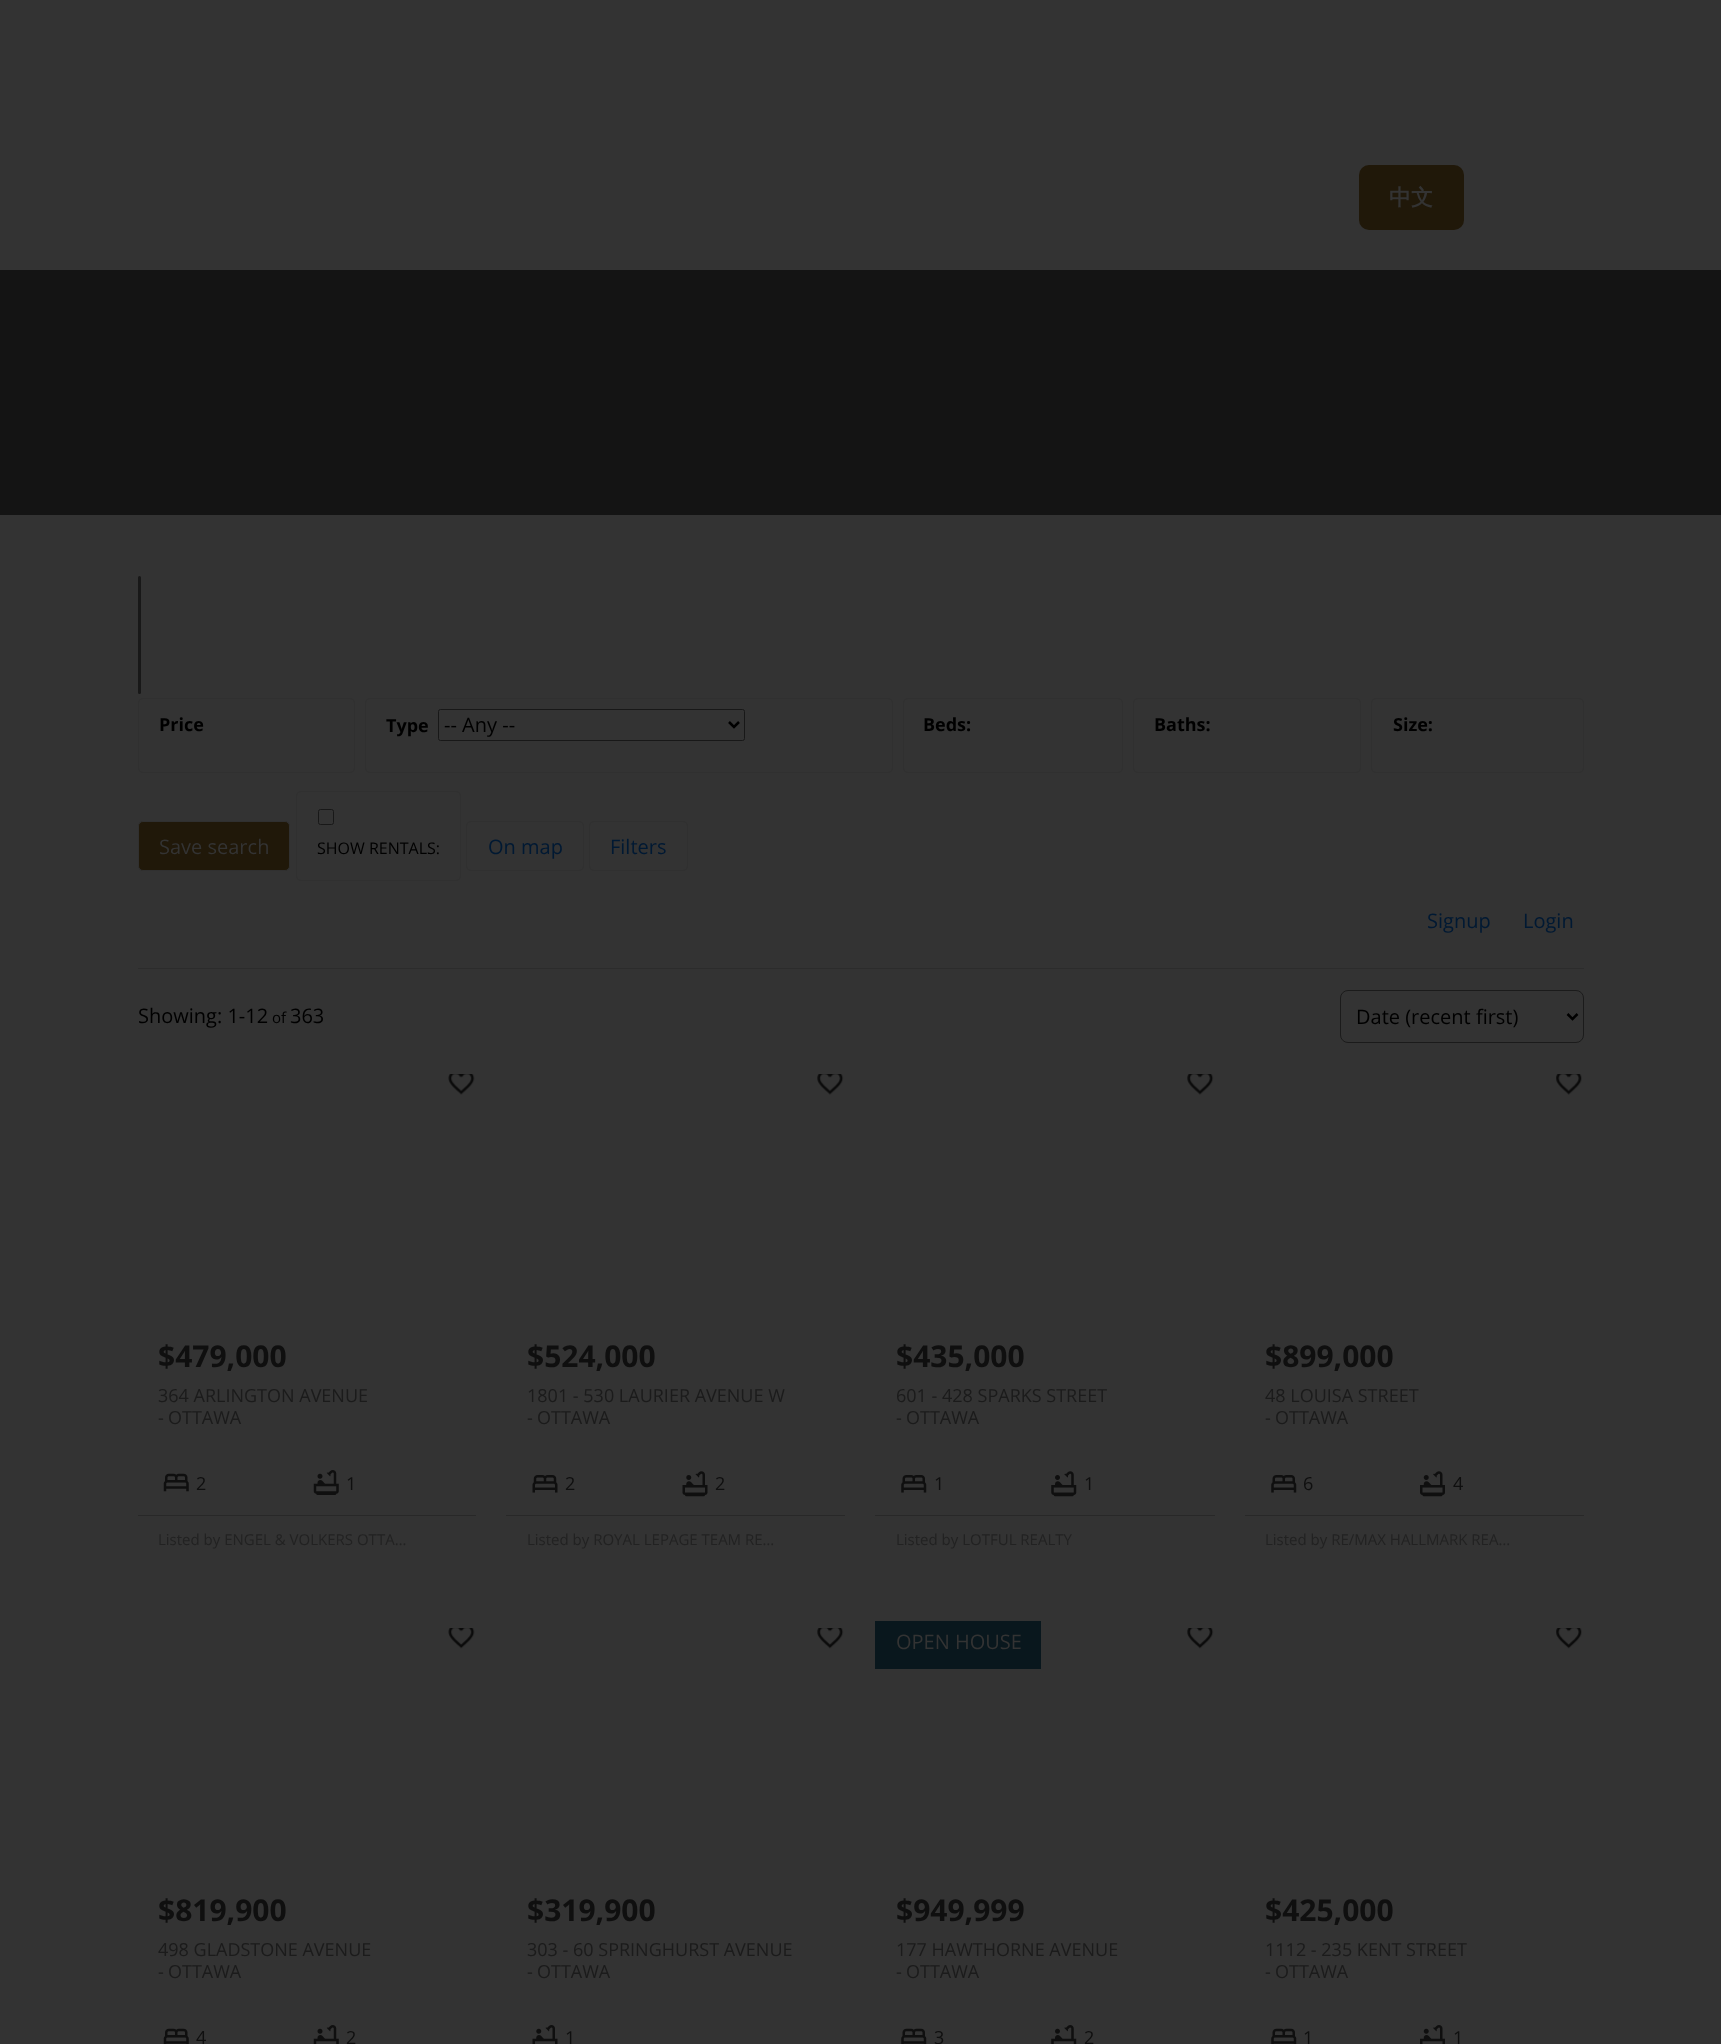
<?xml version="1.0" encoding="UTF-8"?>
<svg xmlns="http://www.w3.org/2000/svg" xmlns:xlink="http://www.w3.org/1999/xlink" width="1721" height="2044">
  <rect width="100%" height="100%" fill="#333333" />
  <rect x="1359" y="165" width="105" height="65" rx="10" fill="#201809" />
  <rect y="270" width="1721" height="245" fill="#141414" />
  <rect x="138" y="576" width="3" height="118" rx="1.5" fill="#181818" />
  <rect x="138.5" y="698.5" width="216" height="74" rx="4.5" fill="none" stroke="#303030" />
  <rect x="365.5" y="698.5" width="527" height="74" rx="4.5" fill="none" stroke="#303030" />
  <rect x="438.5" y="709.5" width="306" height="31" rx="2" fill="none" stroke="#181818" />
  <path d="M 729 722 l 5 5 l 5 -5" fill="none" stroke="#000000" stroke-width="2.5" />
  <rect x="903.5" y="698.5" width="219" height="74" rx="4.5" fill="none" stroke="#303030" />
  <rect x="1133.5" y="698.5" width="227" height="74" rx="4.5" fill="none" stroke="#303030" />
  <rect x="1371.5" y="698.5" width="212" height="74" rx="4.5" fill="none" stroke="#303030" />
  <rect x="138.5" y="821.5" width="151" height="49" rx="4.5" fill="#201809" stroke="#303030" />
  <rect x="296.5" y="791.5" width="164" height="89" rx="4.5" fill="none" stroke="#303030" />
  <rect x="318.5" y="809.5" width="15" height="15" rx="2" fill="none" stroke="#181818" />
  <rect x="466.5" y="821.5" width="117" height="49" rx="4.5" fill="none" stroke="#303030" />
  <rect x="589.5" y="821.5" width="98" height="49" rx="4.5" fill="none" stroke="#303030" />
  <rect x="138" y="968" width="1446" height="1" fill="#2c2c2c" />
  <rect x="1340.5" y="990.5" width="243" height="52" rx="7.5" fill="none" stroke="#1b1b1b" />
  <path d="M 1567.5 1014 l 5 5 l 5 -5" fill="none" stroke="#000000" stroke-width="2.5" />
  <image x="448" y="1074" width="27" height="21" xlink:href="image1.png" />
  <image x="163" y="1473" width="26" height="19" xlink:href="image2.png" />
  <image x="313" y="1470" width="26" height="25" xlink:href="image3.png" />
  <rect x="138" y="1515" width="338" height="1" fill="#282828" />
  <image x="817" y="1074" width="27" height="21" xlink:href="image4.png" />
  <image x="532" y="1475" width="26" height="18" xlink:href="image5.png" />
  <image x="682" y="1471" width="26" height="26" xlink:href="image6.png" />
  <rect x="506" y="1515" width="339" height="1" fill="#282828" />
  <image x="1187" y="1074" width="27" height="21" xlink:href="image4.png" />
  <image x="901" y="1475" width="26" height="18" xlink:href="image7.png" />
  <image x="1051" y="1471" width="26" height="26" xlink:href="image8.png" />
  <rect x="875" y="1515" width="340" height="1" fill="#282828" />
  <image x="1556" y="1074" width="26" height="21" xlink:href="image9.png" />
  <image x="1271" y="1475" width="26" height="18" xlink:href="image7.png" />
  <image x="1420" y="1471" width="25" height="26" xlink:href="image10.png" />
  <rect x="1245" y="1515" width="339" height="1" fill="#282828" />
  <image x="448" y="1628" width="27" height="21" xlink:href="image11.png" />
  <image x="163" y="2028" width="26" height="16" xlink:href="image12.png" />
  <image x="313" y="2025" width="26" height="19" xlink:href="image13.png" />
  <image x="817" y="1628" width="27" height="21" xlink:href="image14.png" />
  <image x="532" y="2025" width="26" height="19" xlink:href="image15.png" />
  <rect x="875" y="1621" width="166" height="48" fill="#09171d" />
  <image x="1187" y="1628" width="27" height="21" xlink:href="image14.png" />
  <image x="901" y="2028" width="26" height="16" xlink:href="image16.png" />
  <image x="1051" y="2025" width="26" height="19" xlink:href="image17.png" />
  <image x="1556" y="1628" width="26" height="21" xlink:href="image18.png" />
  <image x="1271" y="2028" width="26" height="16" xlink:href="image16.png" />
  <image x="1420" y="2025" width="25" height="19" xlink:href="image19.png" />
  <text x="1389" y="205" style="font-family: WenQuanYi Zen Hei; font-size: 22px; font-weight: bold; fill: #333333">中文</text>
  <text x="159" y="731" style="font-family: Open Sans; font-size: 18px; font-weight: bold; fill: #000000">Price</text>
  <text x="386" y="732" style="font-family: Open Sans; font-size: 18px; font-weight: bold; fill: #000000">Type</text>
  <text x="444" y="732" style="font-family: Open Sans; font-size: 20px; fill: #000000">-- Any --</text>
  <text x="923" y="731" style="font-family: Open Sans; font-size: 18px; font-weight: bold; fill: #000000">Beds:</text>
  <text x="1154" y="731" style="font-family: Open Sans; font-size: 18px; font-weight: bold; fill: #000000">Baths:</text>
  <text x="1393" y="731" style="font-family: Open Sans; font-size: 18px; font-weight: bold; fill: #000000">Size:</text>
  <text x="159" y="854" style="font-family: Open Sans; font-size: 20px; fill: #333333">Save search</text>
  <text x="317" y="854" style="font-family: Open Sans; font-size: 16px; fill: #000000">SHOW RENTALS:</text>
  <text x="488" y="854" style="font-family: Open Sans; font-size: 20px; fill: #001933">On map</text>
  <text x="610" y="854" style="font-family: Open Sans; font-size: 20px; fill: #001933">Filters</text>
  <text x="1427" y="928" style="font-family: Open Sans; font-size: 20px; fill: #001933">Signup</text>
  <text x="1523" y="928" style="font-family: Open Sans; font-size: 20px; fill: #001933">Login</text>
  <text x="138" y="1023" style="font-family: Open Sans; font-size: 20px; fill: #000000">Showing: 1-12</text>
  <text x="272" y="1023" style="font-family: Open Sans; font-size: 15px; fill: #000000">of</text>
  <text x="290" y="1023" style="font-family: Open Sans; font-size: 20px; fill: #000000">363</text>
  <text x="1356" y="1024" style="font-family: Open Sans; font-size: 20px; fill: #000000">Date (recent first)</text>
  <text x="158" y="1367" style="font-family: Open Sans; font-size: 30px; font-weight: bold; fill: #0f0f0f">$479,000</text>
  <text x="158" y="1402" style="font-family: Open Sans; font-size: 18px; fill: #1b1b1b">364 ARLINGTON AVENUE</text>
  <text x="158" y="1424" style="font-family: Open Sans; font-size: 18px; fill: #1b1b1b">-</text>
  <text x="168" y="1424" style="font-family: Open Sans; font-size: 18px; fill: #1b1b1b">OTTAWA</text>
  <text x="196" y="1490" style="font-family: Open Sans; font-size: 18px; fill: #0f0f0f">2</text>
  <text x="346" y="1490" style="font-family: Open Sans; font-size: 18px; fill: #0f0f0f">1</text>
  <text x="158" y="1545" style="font-family: Open Sans; font-size: 15px; fill: #222222">Listed by ENGEL &amp; VOLKERS OTTA…</text>
  <text x="527" y="1367" style="font-family: Open Sans; font-size: 30px; font-weight: bold; fill: #0f0f0f">$524,000</text>
  <text x="527" y="1402" style="font-family: Open Sans; font-size: 18px; fill: #1b1b1b">1801 - 530 LAURIER AVENUE W</text>
  <text x="527" y="1424" style="font-family: Open Sans; font-size: 18px; fill: #1b1b1b">-</text>
  <text x="537" y="1424" style="font-family: Open Sans; font-size: 18px; fill: #1b1b1b">OTTAWA</text>
  <text x="565" y="1490" style="font-family: Open Sans; font-size: 18px; fill: #0f0f0f">2</text>
  <text x="715" y="1490" style="font-family: Open Sans; font-size: 18px; fill: #0f0f0f">2</text>
  <text x="527" y="1545" style="font-family: Open Sans; font-size: 15px; fill: #222222">Listed by ROYAL LEPAGE TEAM RE…</text>
  <text x="896" y="1367" style="font-family: Open Sans; font-size: 30px; font-weight: bold; fill: #0f0f0f">$435,000</text>
  <text x="896" y="1402" style="font-family: Open Sans; font-size: 18px; fill: #1b1b1b">601 - 428 SPARKS STREET</text>
  <text x="896" y="1424" style="font-family: Open Sans; font-size: 18px; fill: #1b1b1b">-</text>
  <text x="906" y="1424" style="font-family: Open Sans; font-size: 18px; fill: #1b1b1b">OTTAWA</text>
  <text x="934" y="1490" style="font-family: Open Sans; font-size: 18px; fill: #0f0f0f">1</text>
  <text x="1084" y="1490" style="font-family: Open Sans; font-size: 18px; fill: #0f0f0f">1</text>
  <text x="896" y="1545" style="font-family: Open Sans; font-size: 15px; fill: #222222">Listed by LOTFUL REALTY</text>
  <text x="1265" y="1367" style="font-family: Open Sans; font-size: 30px; font-weight: bold; fill: #0f0f0f">$899,000</text>
  <text x="1265" y="1402" style="font-family: Open Sans; font-size: 18px; fill: #1b1b1b">48 LOUISA STREET</text>
  <text x="1265" y="1424" style="font-family: Open Sans; font-size: 18px; fill: #1b1b1b">-</text>
  <text x="1275" y="1424" style="font-family: Open Sans; font-size: 18px; fill: #1b1b1b">OTTAWA</text>
  <text x="1303" y="1490" style="font-family: Open Sans; font-size: 18px; fill: #0f0f0f">6</text>
  <text x="1453" y="1490" style="font-family: Open Sans; font-size: 18px; fill: #0f0f0f">4</text>
  <text x="1265" y="1545" style="font-family: Open Sans; font-size: 15px; fill: #222222">Listed by RE/MAX HALLMARK REA…</text>
  <text x="158" y="1921" style="font-family: Open Sans; font-size: 30px; font-weight: bold; fill: #0f0f0f">$819,900</text>
  <text x="158" y="1956" style="font-family: Open Sans; font-size: 18px; fill: #1b1b1b">498 GLADSTONE AVENUE</text>
  <text x="158" y="1978" style="font-family: Open Sans; font-size: 18px; fill: #1b1b1b">-</text>
  <text x="168" y="1978" style="font-family: Open Sans; font-size: 18px; fill: #1b1b1b">OTTAWA</text>
  <text x="196" y="2044" style="font-family: Open Sans; font-size: 18px; fill: #0f0f0f">4</text>
  <text x="346" y="2044" style="font-family: Open Sans; font-size: 18px; fill: #0f0f0f">2</text>
  <text x="527" y="1921" style="font-family: Open Sans; font-size: 30px; font-weight: bold; fill: #0f0f0f">$319,900</text>
  <text x="527" y="1956" style="font-family: Open Sans; font-size: 18px; fill: #1b1b1b">303 - 60 SPRINGHURST AVENUE</text>
  <text x="527" y="1978" style="font-family: Open Sans; font-size: 18px; fill: #1b1b1b">-</text>
  <text x="537" y="1978" style="font-family: Open Sans; font-size: 18px; fill: #1b1b1b">OTTAWA</text>
  <text x="565" y="2044" style="font-family: Open Sans; font-size: 18px; fill: #0f0f0f">1</text>
  <text x="896" y="1649" style="font-family: Open Sans; font-size: 20px; fill: #333333">OPEN HOUSE</text>
  <text x="896" y="1921" style="font-family: Open Sans; font-size: 30px; font-weight: bold; fill: #0f0f0f">$949,999</text>
  <text x="896" y="1956" style="font-family: Open Sans; font-size: 18px; fill: #1b1b1b">177 HAWTHORNE AVENUE</text>
  <text x="896" y="1978" style="font-family: Open Sans; font-size: 18px; fill: #1b1b1b">-</text>
  <text x="906" y="1978" style="font-family: Open Sans; font-size: 18px; fill: #1b1b1b">OTTAWA</text>
  <text x="934" y="2044" style="font-family: Open Sans; font-size: 18px; fill: #0f0f0f">3</text>
  <text x="1084" y="2044" style="font-family: Open Sans; font-size: 18px; fill: #0f0f0f">2</text>
  <text x="1265" y="1921" style="font-family: Open Sans; font-size: 30px; font-weight: bold; fill: #0f0f0f">$425,000</text>
  <text x="1265" y="1956" style="font-family: Open Sans; font-size: 18px; fill: #1b1b1b">1112 - 235 KENT STREET</text>
  <text x="1265" y="1978" style="font-family: Open Sans; font-size: 18px; fill: #1b1b1b">-</text>
  <text x="1275" y="1978" style="font-family: Open Sans; font-size: 18px; fill: #1b1b1b">OTTAWA</text>
  <text x="1303" y="2044" style="font-family: Open Sans; font-size: 18px; fill: #0f0f0f">1</text>
  <text x="1453" y="2044" style="font-family: Open Sans; font-size: 18px; fill: #0f0f0f">1</text>
</svg>
